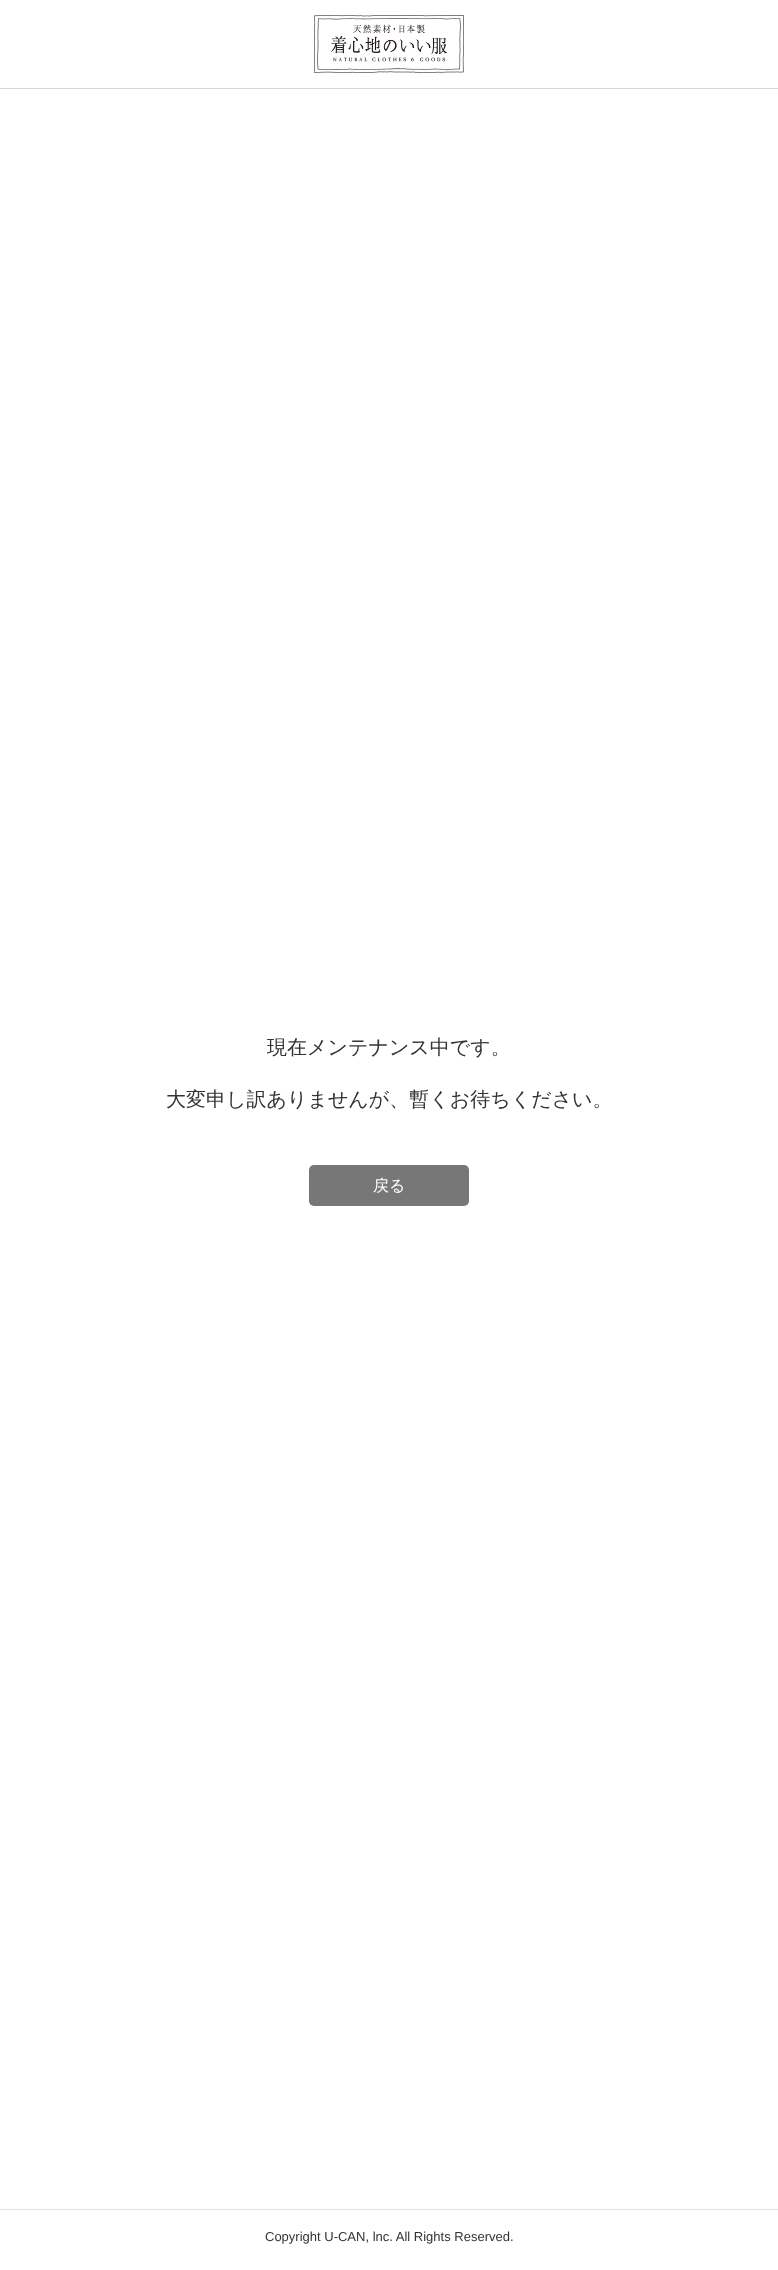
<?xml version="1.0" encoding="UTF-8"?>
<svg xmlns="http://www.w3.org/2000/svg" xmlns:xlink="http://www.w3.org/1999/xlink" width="778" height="2270">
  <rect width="100%" height="100%" fill="#ffffff" />
  <rect y="88" width="778" height="1" fill="#d6d6d6" />
  <image x="314" y="15" width="150" height="58" xlink:href="image1.png" />
  <rect x="309" y="1165" width="160" height="41" rx="5" fill="#777777" />
  <rect y="2209" width="778" height="1" fill="#e1e1e1" />
  <text x="267" y="1054" style="font-family: WenQuanYi Zen Hei; font-size: 20px; font-weight: 500; fill: #333333">現在メンテナンス中です。</text>
  <text x="166" y="1106" style="font-family: WenQuanYi Zen Hei; font-size: 20px; font-weight: 500; fill: #333333">大変申し訳ありませんが、暫くお待ちください。</text>
  <text x="373" y="1191" style="font-family: WenQuanYi Zen Hei; font-size: 16px; font-weight: 500; fill: #ffffff">戻る</text>
  <text x="265" y="2241" style="font-family: Liberation Sans; font-size: 13px; fill: #333333">Copyright U-CAN, lnc. All Rights Reserved.</text>
</svg>
